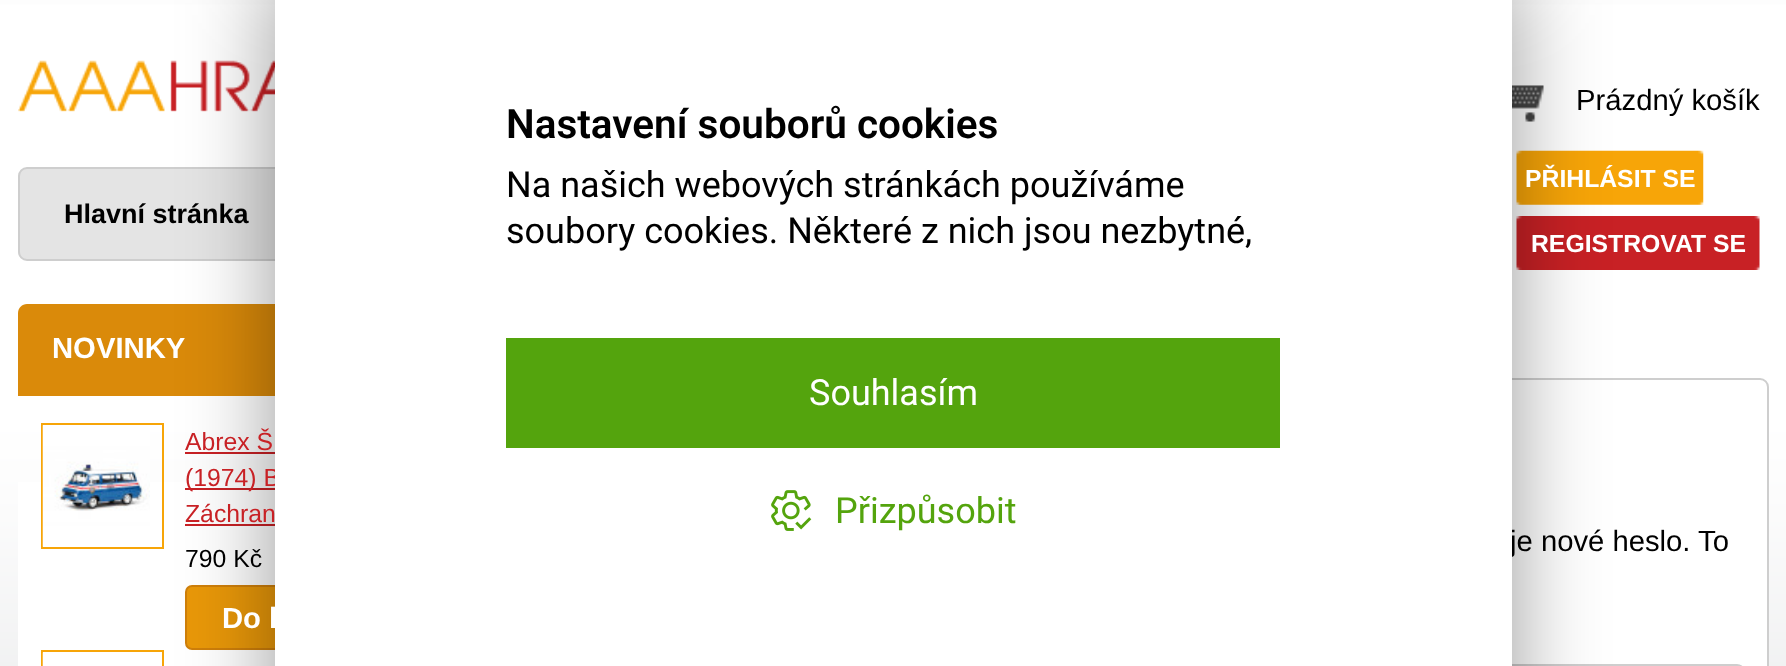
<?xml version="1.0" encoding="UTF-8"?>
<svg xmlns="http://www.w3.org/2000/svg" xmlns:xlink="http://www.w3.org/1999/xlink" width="1786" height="666">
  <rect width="100%" height="100%" fill="#ffffff" />
  <image x="0" y="0" width="1786" height="666" xlink:href="image1.png" />
  <image x="18" y="60" width="257" height="52" xlink:href="image2.png" />
  <image x="1512" y="85" width="32" height="37" xlink:href="image3.png" />
  <rect x="19" y="168" width="1373" height="92" rx="8" fill="#e4e4e4" stroke="#cecece" stroke-width="2" />
  <image x="1516" y="150" width="188" height="55" xlink:href="image4.png" />
  <image x="1516" y="216" width="244" height="54" xlink:href="image5.png" />
  <path d="M 27 304 h 428 c 5 0 9 4 9 9 v 83 h -446 v -83 c 0 -5 4 -9 9 -9 z" fill="#da8a0a" />
  <rect x="18" y="482" width="257" height="184" fill="#ffffff" />
  <rect x="42" y="424" width="121" height="124" fill="none" stroke="#f7a508" stroke-width="2" />
  <image x="42" y="425" width="108" height="122" xlink:href="image6.png" />
  <rect x="185" y="452" width="90" height="2" fill="#c82125" />
  <rect x="185" y="488" width="90" height="2" fill="#c82125" />
  <rect x="185" y="524" width="90" height="2" fill="#c82125" />
  <rect x="186" y="586" width="211" height="63" rx="6" fill="#e99809" stroke="#cf7f0a" stroke-width="2" />
  <rect x="42" y="651" width="121" height="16" fill="none" stroke="#f7a508" stroke-width="2" />
  <image x="42" y="652" width="1" height="14" xlink:href="image7.png" />
  <image x="1760" y="378" width="9" height="9" xlink:href="image8.png" />
  <rect x="483" y="379" width="1285" height="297" rx="8" fill="#ffffff" stroke="#cecece" stroke-width="2" />
  <rect x="507" y="665" width="1236" height="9" rx="6" fill="none" stroke="#cecece" stroke-width="2" />
  <rect x="275" y="-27" width="1237" height="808" fill="#000000" fill-opacity="0.4" filter="blur(45px)" />
  <text x="1576" y="110" style="font-family: Liberation Sans; font-size: 29.25px; fill: #000000">Prázdný košík</text>
  <text x="64" y="223" style="font-family: Liberation Sans; font-size: 27px; font-weight: bold; fill: #000000">Hlavní stránka</text>
  <text x="1525" y="187" style="font-family: Liberation Sans; font-size: 24.75px; font-weight: bold; fill: #ffffff">PŘIHLÁSIT SE</text>
  <text x="1531" y="252" style="font-family: Liberation Sans; font-size: 24.75px; font-weight: bold; fill: #ffffff">REGISTROVAT SE</text>
  <text x="52" y="358" style="font-family: Liberation Sans; font-size: 29.25px; font-weight: bold; fill: #ffffff">NOVINKY</text>
  <text x="185" y="450" style="font-family: Liberation Sans; font-size: 24.75px; fill: #c82125">Abrex Š</text>
  <text x="185" y="486" style="font-family: Liberation Sans; font-size: 24.75px; fill: #c82125">(1974) B</text>
  <text x="185" y="522" style="font-family: Liberation Sans; font-size: 24.75px; fill: #c82125">Záchran</text>
  <text x="185" y="567" style="font-family: Liberation Sans; font-size: 24.75px; fill: #000000">790 Kč</text>
  <text x="222" y="628" style="font-family: Liberation Sans; font-size: 29.25px; font-weight: bold; fill: #ffffff">Do k</text>
  <text x="1510" y="551" style="font-family: Liberation Sans; font-size: 29.25px; fill: #000000">je nové heslo. To</text>
  <rect x="275" width="1237" height="666" fill="#ffffff" />
  <text x="506" y="138" style="font-family: Roboto; font-size: 40.5px; font-weight: 600; fill: #000000">Nastavení souborů cookies</text>
  <text x="506" y="197" style="font-family: Roboto; font-size: 36px; fill: #000000">Na našich webových stránkách používáme</text>
  <text x="506" y="243" style="font-family: Roboto; font-size: 36px; fill: #000000">soubory cookies. Některé z nich jsou nezbytné,</text>
  <rect x="506" y="338" width="774" height="110" fill="#54a40d" />
  <text x="809" y="405" style="font-family: Roboto; font-size: 36px; fill: #ffffff">Souhlasím</text>
  <image x="771" y="490" width="41" height="41" xlink:href="image9.png" />
  <text x="835" y="523" style="font-family: Roboto; font-size: 36px; fill: #54a40d">Přizpůsobit</text>
</svg>
